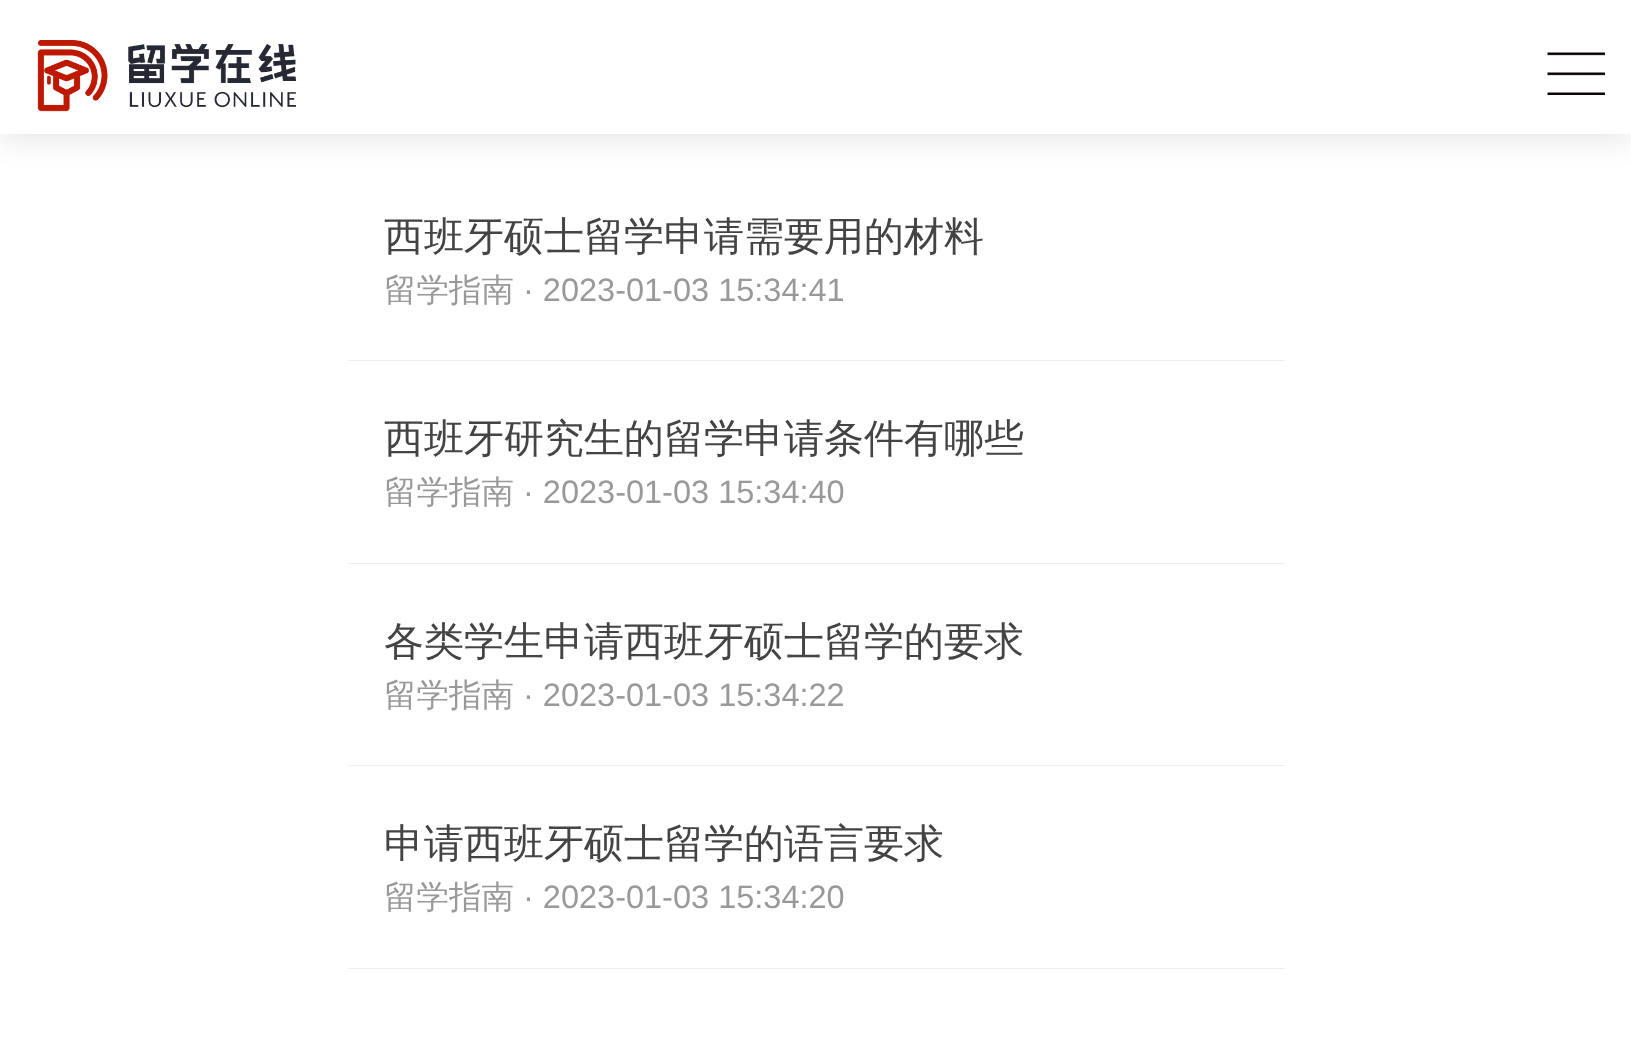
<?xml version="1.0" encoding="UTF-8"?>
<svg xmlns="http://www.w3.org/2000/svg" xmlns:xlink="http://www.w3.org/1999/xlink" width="1631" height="1043">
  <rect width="100%" height="100%" fill="#ffffff" />
  <rect y="4" width="1631" height="134" fill="#000000" fill-opacity="0.11" filter="blur(15px)" />
  <rect width="1631" height="134" fill="#ffffff" />
  <image x="37" y="40" width="260" height="72" xlink:href="image1.png" />
  <image x="1547" y="52" width="58" height="43" xlink:href="image2.png" />
  <rect x="348" y="360" width="937" height="1" fill="#eeeeee" />
  <rect x="348" y="563" width="937" height="1" fill="#eeeeee" />
  <rect x="348" y="765" width="937" height="1" fill="#eeeeee" />
  <rect x="348" y="968" width="937" height="1" fill="#eeeeee" />
  <text x="384" y="250" style="font-family: WenQuanYi Zen Hei; font-size: 40px; font-weight: 500; fill: #444444">西班牙硕士留学申请需要用的材料</text>
  <text x="384" y="301" style="font-family: WenQuanYi Zen Hei; font-size: 32.5px; font-weight: 500; fill: #999999">留学指南</text>
  <text x="523" y="301" style="font-family: Liberation Sans; font-size: 32.5px; fill: #999999">· 2023-01-03 15:34:41</text>
  <text x="384" y="452" style="font-family: WenQuanYi Zen Hei; font-size: 40px; font-weight: 500; fill: #444444">西班牙研究生的留学申请条件有哪些</text>
  <text x="384" y="503" style="font-family: WenQuanYi Zen Hei; font-size: 32.5px; font-weight: 500; fill: #999999">留学指南</text>
  <text x="523" y="503" style="font-family: Liberation Sans; font-size: 32.5px; fill: #999999">· 2023-01-03 15:34:40</text>
  <text x="384" y="655" style="font-family: WenQuanYi Zen Hei; font-size: 40px; font-weight: 500; fill: #444444">各类学生申请西班牙硕士留学的要求</text>
  <text x="384" y="706" style="font-family: WenQuanYi Zen Hei; font-size: 32.5px; font-weight: 500; fill: #999999">留学指南</text>
  <text x="523" y="706" style="font-family: Liberation Sans; font-size: 32.5px; fill: #999999">· 2023-01-03 15:34:22</text>
  <text x="384" y="857" style="font-family: WenQuanYi Zen Hei; font-size: 40px; font-weight: 500; fill: #444444">申请西班牙硕士留学的语言要求</text>
  <text x="384" y="908" style="font-family: WenQuanYi Zen Hei; font-size: 32.5px; font-weight: 500; fill: #999999">留学指南</text>
  <text x="523" y="908" style="font-family: Liberation Sans; font-size: 32.5px; fill: #999999">· 2023-01-03 15:34:20</text>
</svg>
